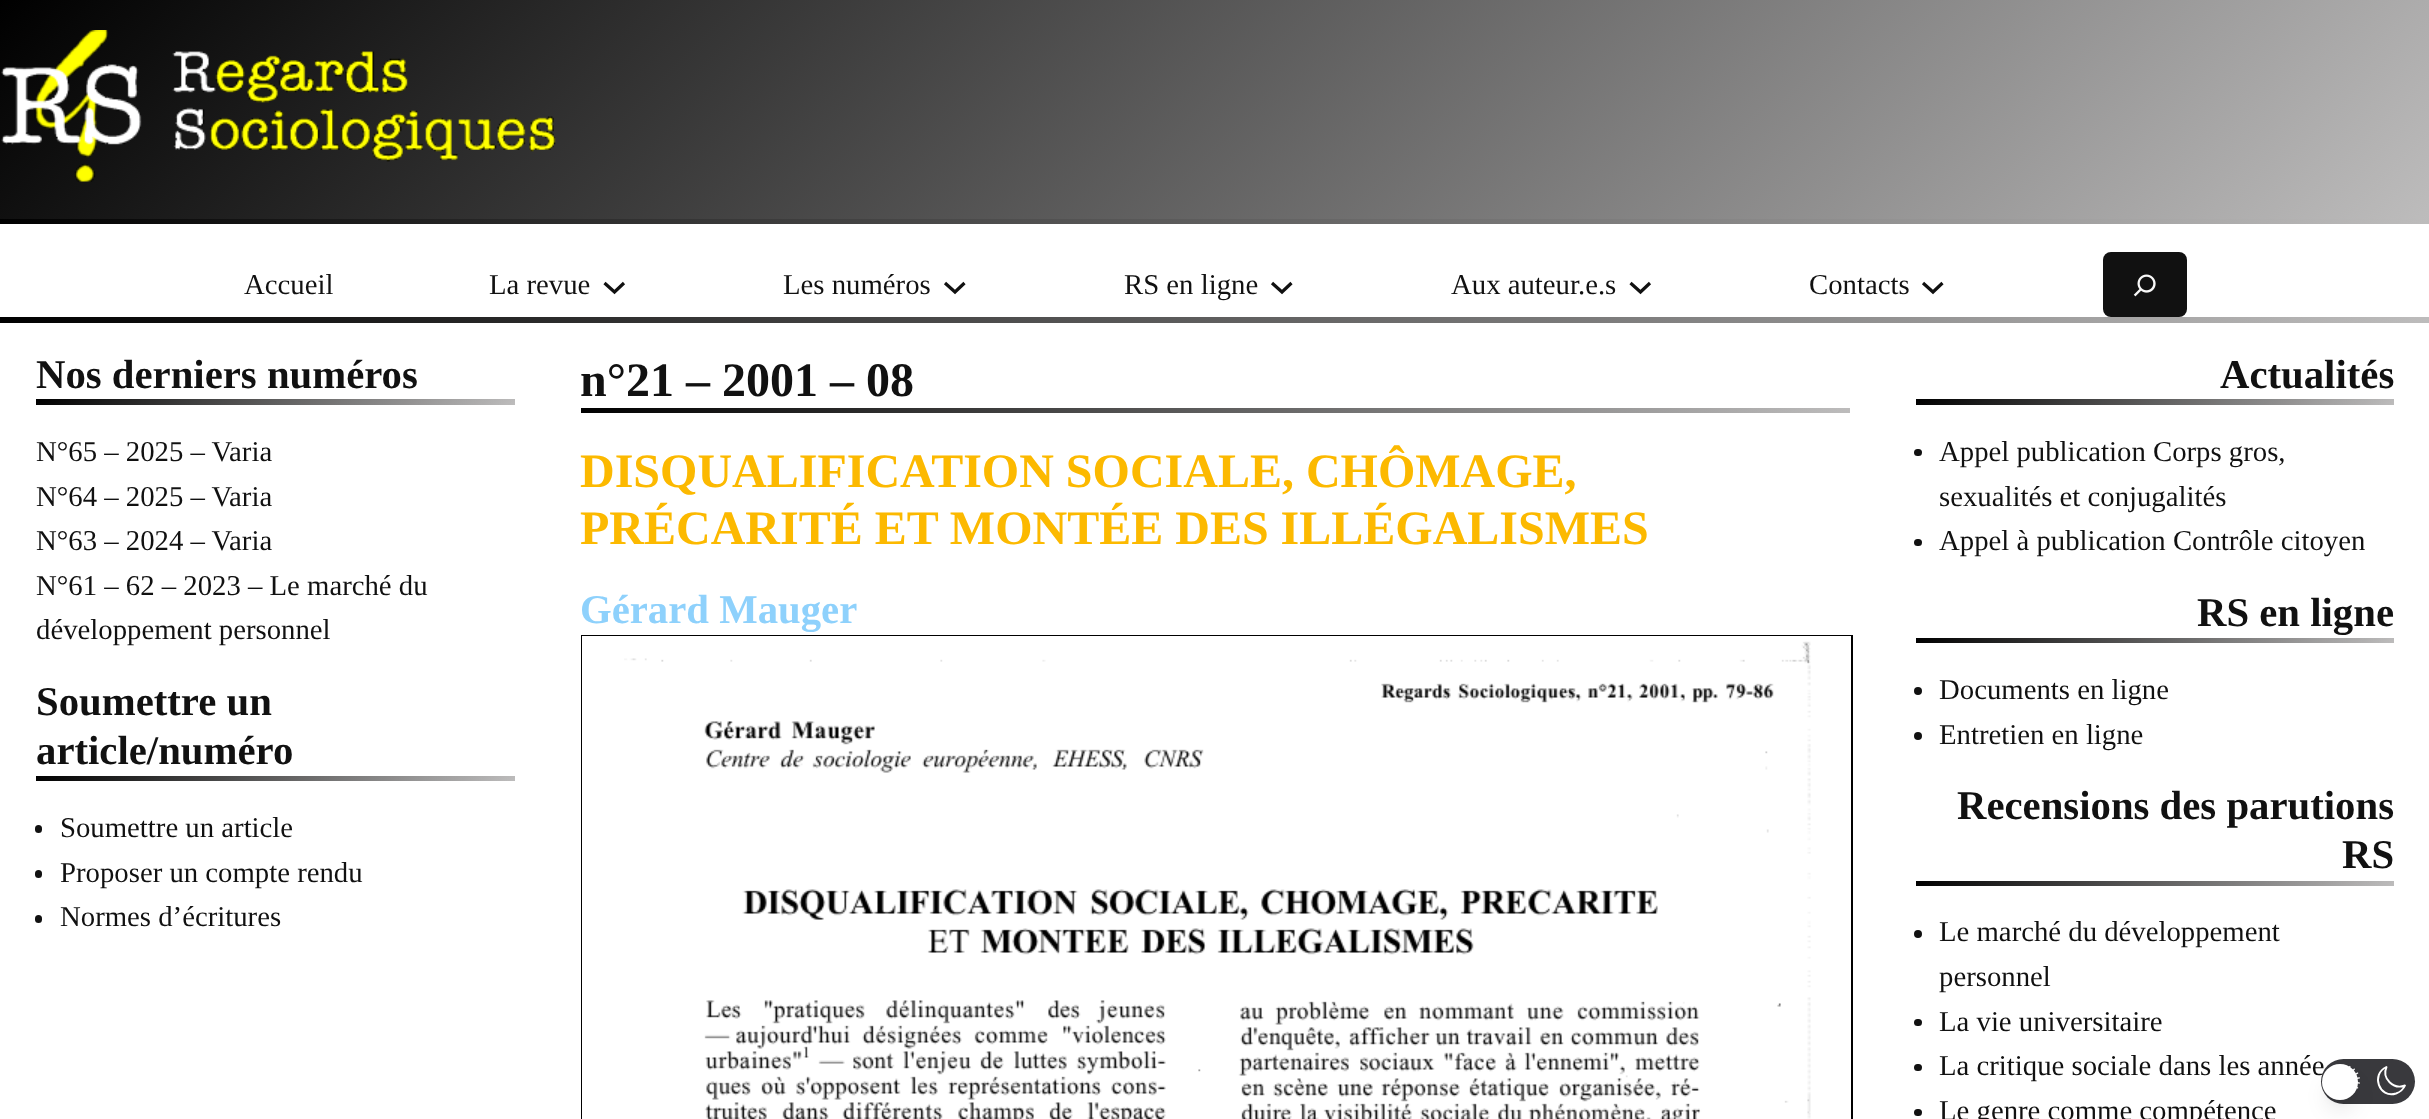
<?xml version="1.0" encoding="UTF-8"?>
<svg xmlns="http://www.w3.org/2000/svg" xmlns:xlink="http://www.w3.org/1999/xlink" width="2429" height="1119">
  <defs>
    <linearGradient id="g1" gradientUnits="userSpaceOnUse" x1="553" y1="-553" x2="1877" y2="772"><stop offset="0" stop-color="#000000" /><stop offset="1" stop-color="#bdbcbc" /></linearGradient>
    <linearGradient id="g2" gradientUnits="userSpaceOnUse" x1="606" y1="-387" x2="1824" y2="830"><stop offset="0" stop-color="#000000" /><stop offset="1" stop-color="#bdbcbc" /></linearGradient>
    <linearGradient id="g3" gradientUnits="userSpaceOnUse" x1="606" y1="-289" x2="1824" y2="929"><stop offset="0" stop-color="#000000" /><stop offset="1" stop-color="#bdbcbc" /></linearGradient>
    <linearGradient id="g4" gradientUnits="userSpaceOnUse" x1="154" y1="281" x2="396" y2="523"><stop offset="0" stop-color="#000000" /><stop offset="1" stop-color="#bdbcbc" /></linearGradient>
    <linearGradient id="g5" gradientUnits="userSpaceOnUse" x1="155" y1="657" x2="396" y2="899"><stop offset="0" stop-color="#000000" /><stop offset="1" stop-color="#bdbcbc" /></linearGradient>
    <linearGradient id="g6" gradientUnits="userSpaceOnUse" x1="897" y1="92" x2="1533" y2="729"><stop offset="0" stop-color="#000000" /><stop offset="1" stop-color="#bdbcbc" /></linearGradient>
    <linearGradient id="g7" gradientUnits="userSpaceOnUse" x1="2034" y1="281" x2="2276" y2="523"><stop offset="0" stop-color="#000000" /><stop offset="1" stop-color="#bdbcbc" /></linearGradient>
    <linearGradient id="g8" gradientUnits="userSpaceOnUse" x1="2034" y1="519" x2="2276" y2="761"><stop offset="0" stop-color="#000000" /><stop offset="1" stop-color="#bdbcbc" /></linearGradient>
    <linearGradient id="g9" gradientUnits="userSpaceOnUse" x1="2034" y1="762" x2="2276" y2="1004"><stop offset="0" stop-color="#000000" /><stop offset="1" stop-color="#bdbcbc" /></linearGradient>
  </defs>
  <rect width="100%" height="100%" fill="#ffffff" />
  <rect width="2429" height="219" fill="url(#g1)" />
  <image x="1" y="30" width="555" height="152" xlink:href="image1.png" />
  <rect y="219" width="2429" height="5" fill="url(#g2)" />
  <path d="M 604.5 283 l 10 9 l 9.5 -9" fill="none" stroke="#111111" stroke-width="3.2" />
  <path d="M 945 283 l 10 9 l 9.5 -9" fill="none" stroke="#111111" stroke-width="3.2" />
  <path d="M 1272 283 l 10 9 l 9.5 -9" fill="none" stroke="#111111" stroke-width="3.2" />
  <path d="M 1630.5 283 l 10 9 l 9.5 -9" fill="none" stroke="#111111" stroke-width="3.2" />
  <path d="M 1923 283 l 10 9 l 9.5 -9" fill="none" stroke="#111111" stroke-width="3.2" />
  <rect x="2103" y="252" width="84" height="65" rx="8" fill="#111111" />
  <image x="2133" y="274" width="23" height="23" xlink:href="image2.png" />
  <rect y="317" width="2429" height="6" fill="url(#g3)" />
  <rect x="36" y="399" width="479" height="6" fill="url(#g4)" />
  <rect x="36" y="776" width="479" height="5" fill="url(#g5)" />
  <rect x="35" y="825" width="7" height="8" rx="3.5" fill="#111111" />
  <rect x="35" y="870" width="7" height="8" rx="3.5" fill="#111111" />
  <rect x="35" y="915" width="7" height="8" rx="3.5" fill="#111111" />
  <rect x="581" y="408" width="1269" height="5" fill="url(#g6)" />
  <rect x="582" y="636" width="1270" height="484" fill="none" stroke="#000000" stroke-width="2" />
  <rect x="582" y="636" width="1269" height="483" fill="#ffffff" />
  <image x="624" y="641" width="1187" height="478" xlink:href="image3.png" />
  <rect x="1916" y="399" width="478" height="6" fill="url(#g7)" />
  <rect x="1914" y="449" width="8" height="7" rx="3.5" fill="#111111" />
  <rect x="1914" y="539" width="8" height="7" rx="3.5" fill="#111111" />
  <rect x="1916" y="638" width="478" height="5" fill="url(#g8)" />
  <circle cx="1918" cy="691" r="4" fill="#111111" />
  <circle cx="1918" cy="736" r="4" fill="#111111" />
  <rect x="1916" y="881" width="478" height="5" fill="url(#g9)" />
  <circle cx="1918" cy="934" r="4" fill="#111111" />
  <rect x="1914" y="1019" width="8" height="7" rx="3.5" fill="#111111" />
  <rect x="1914" y="1064" width="8" height="7" rx="3.5" fill="#111111" />
  <rect x="1914" y="1109" width="8" height="7" rx="3.5" fill="#111111" />
  <text x="244" y="294" style="font-family: Liberation Serif; font-size: 28.75px; fill: #111111">Accueil</text>
  <text x="489" y="294" style="font-family: Liberation Serif; font-size: 28.75px; fill: #111111">La revue</text>
  <text x="783" y="294" style="font-family: Liberation Serif; font-size: 28.75px; fill: #111111">Les numéros</text>
  <text x="1124" y="294" style="font-family: Liberation Serif; font-size: 28.75px; fill: #111111">RS en ligne</text>
  <text x="1451" y="294" style="font-family: Liberation Serif; font-size: 28.75px; fill: #111111">Aux auteur.e.s</text>
  <text x="1809" y="294" style="font-family: Liberation Serif; font-size: 28.75px; fill: #111111">Contacts</text>
  <text x="36" y="388" style="font-family: Liberation Serif; font-size: 40.75px; font-weight: bold; fill: #111111">Nos derniers numéros</text>
  <text x="36" y="461" style="font-family: Liberation Serif; font-size: 28.75px; fill: #111111">N°65 – 2025 – Varia</text>
  <text x="36" y="506" style="font-family: Liberation Serif; font-size: 28.75px; fill: #111111">N°64 – 2025 – Varia</text>
  <text x="36" y="550" style="font-family: Liberation Serif; font-size: 28.75px; fill: #111111">N°63 – 2024 – Varia</text>
  <text x="36" y="595" style="font-family: Liberation Serif; font-size: 28.75px; fill: #111111">N°61 – 62 – 2023 – Le marché du</text>
  <text x="36" y="639" style="font-family: Liberation Serif; font-size: 28.75px; fill: #111111">développement personnel</text>
  <text x="36" y="715" style="font-family: Liberation Serif; font-size: 40.75px; font-weight: bold; fill: #111111">Soumettre un</text>
  <text x="36" y="764" style="font-family: Liberation Serif; font-size: 40.75px; font-weight: bold; fill: #111111">article/numéro</text>
  <text x="60" y="837" style="font-family: Liberation Serif; font-size: 28.75px; fill: #111111">Soumettre un article</text>
  <text x="60" y="882" style="font-family: Liberation Serif; font-size: 28.75px; fill: #111111">Proposer un compte rendu</text>
  <text x="60" y="926" style="font-family: Liberation Serif; font-size: 28.75px; fill: #111111">Normes d’écritures</text>
  <text x="580" y="396" style="font-family: Liberation Serif; font-size: 48px; font-weight: bold; fill: #111111">n°21 – 2001 – 08</text>
  <text x="580" y="487" style="font-family: Liberation Serif; font-size: 48px; font-weight: bold; fill: #fcb900">DISQUALIFICATION SOCIALE, CHÔMAGE,</text>
  <text x="580" y="544" style="font-family: Liberation Serif; font-size: 48px; font-weight: bold; fill: #fcb900">PRÉCARITÉ ET MONTÉE DES ILLÉGALISMES</text>
  <text x="580" y="623" style="font-family: Liberation Serif; font-size: 40.75px; font-weight: bold; fill: #8ed1fc">Gérard Mauger</text>
  <text x="2220" y="388" style="font-family: Liberation Serif; font-size: 40.75px; font-weight: bold; fill: #111111">Actualités</text>
  <text x="1939" y="461" style="font-family: Liberation Serif; font-size: 28.75px; fill: #111111">Appel publication Corps gros,</text>
  <text x="1939" y="506" style="font-family: Liberation Serif; font-size: 28.75px; fill: #111111">sexualités et conjugalités</text>
  <text x="1939" y="550" style="font-family: Liberation Serif; font-size: 28.75px; fill: #111111">Appel à publication Contrôle citoyen</text>
  <text x="2197" y="626" style="font-family: Liberation Serif; font-size: 40.75px; font-weight: bold; fill: #111111">RS en ligne</text>
  <text x="1939" y="699" style="font-family: Liberation Serif; font-size: 28.75px; fill: #111111">Documents en ligne</text>
  <text x="1939" y="744" style="font-family: Liberation Serif; font-size: 28.75px; fill: #111111">Entretien en ligne</text>
  <text x="1957" y="819" style="font-family: Liberation Serif; font-size: 40.75px; font-weight: bold; fill: #111111">Recensions des parutions</text>
  <text x="2342" y="868" style="font-family: Liberation Serif; font-size: 40.75px; font-weight: bold; fill: #111111">RS</text>
  <text x="1939" y="941" style="font-family: Liberation Serif; font-size: 28.75px; fill: #111111">Le marché du développement</text>
  <text x="1939" y="986" style="font-family: Liberation Serif; font-size: 28.75px; fill: #111111">personnel</text>
  <text x="1939" y="1031" style="font-family: Liberation Serif; font-size: 28.75px; fill: #111111">La vie universitaire</text>
  <text x="1939" y="1075" style="font-family: Liberation Serif; font-size: 28.75px; fill: #111111">La critique sociale dans les année</text>
  <text x="1939" y="1120" style="font-family: Liberation Serif; font-size: 28.75px; fill: #111111">Le genre comme compétence</text>
  <rect x="2321" y="1059" width="94" height="45" rx="22.5" fill="#39393d" />
  <image x="2349" y="1065" width="11" height="28" xlink:href="image4.png" />
  <rect x="2328" y="1076" width="24" height="24" rx="12" fill="#000000" fill-opacity="0.1" filter="blur(4.5px)" />
  <path d="M 2405 1085.5 c -11.5 4.5 -23.5 -7 -18.5 -18.5 c -16 7 -7.5 32 9.5 26.5 c 4 -1.5 7.5 -4.5 9 -8 z" fill="none" stroke="#ffffff" stroke-width="1.9" stroke-linecap="round" stroke-linejoin="round" />
  <rect x="2327" y="1083" width="27" height="27" rx="13.5" fill="#000000" fill-opacity="0.1" filter="blur(11px)" />
  <circle cx="2340" cy="1082" r="18" fill="#ffffff" />
</svg>
